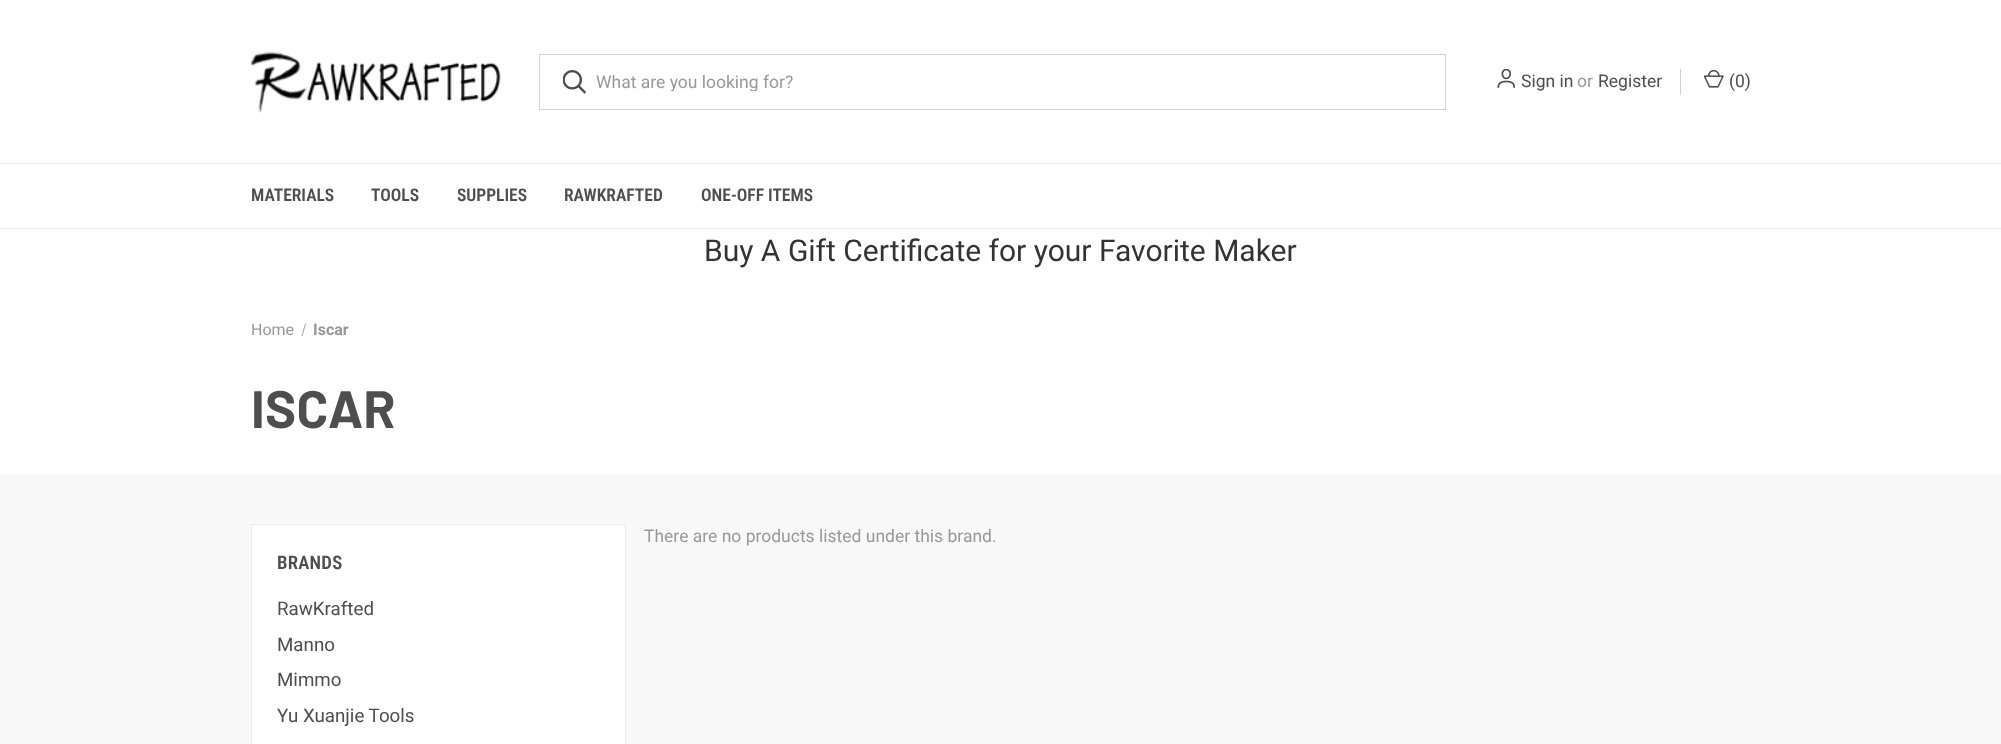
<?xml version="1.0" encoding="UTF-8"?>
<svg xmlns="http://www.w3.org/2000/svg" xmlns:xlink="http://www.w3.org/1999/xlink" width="2001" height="744">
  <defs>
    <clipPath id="clip1"><rect x="596" y="71" width="832" height="20" /></clipPath>
  </defs>
  <rect width="100%" height="100%" fill="#ffffff" />
  <image x="251" y="51" width="250" height="62" xlink:href="image1.png" />
  <rect x="539.5" y="54.5" width="906" height="55" fill="none" stroke="#d2d2d2" />
  <image x="563" y="70" width="23" height="24" xlink:href="image2.png" />
  <image x="1497" y="69" width="19" height="19" xlink:href="image3.png" />
  <rect x="1680" y="69" width="1" height="26" fill="#d2d2d2" />
  <image x="1704" y="69" width="20" height="19" xlink:href="image4.png" />
  <rect y="163" width="2001" height="1" fill="#ebebeb" />
  <rect y="228" width="2001" height="1" fill="#ebebeb" />
  <path d="M 305 323.5 h 1 l -3.5 12.5 h -1 z" fill="#a3a3a3" />
  <rect y="474" width="2001" height="270" fill="#f9f9f9" />
  <rect x="251.5" y="524.5" width="374" height="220" fill="#ffffff" stroke="#ebebeb" />
  <g clip-path="url(#clip1)">
    <text x="596" y="88" style="font-family: Roboto; font-size: 17.5px; fill: #989898">What are you looking for?</text>
  </g>
  <text x="1521" y="87" style="font-family: Roboto; font-size: 17.5px; fill: #4e4e4e">Sign in</text>
  <text x="1577" y="87" style="font-family: Roboto; font-size: 17.5px; fill: #989898">or</text>
  <text x="1598" y="87" style="font-family: Roboto; font-size: 17.5px; fill: #4e4e4e">Register</text>
  <text x="1729" y="87" style="font-family: Roboto; font-size: 17.5px; fill: #4e4e4e">(0)</text>
  <text x="251" y="201" style="font-family: Roboto Condensed; font-size: 17.5px; font-weight: 600; fill: #4e4e4e">MATERIALS</text>
  <text x="371" y="201" style="font-family: Roboto Condensed; font-size: 17.5px; font-weight: 600; fill: #4e4e4e">TOOLS</text>
  <text x="457" y="201" style="font-family: Roboto Condensed; font-size: 17.5px; font-weight: 600; fill: #4e4e4e">SUPPLIES</text>
  <text x="564" y="201" style="font-family: Roboto Condensed; font-size: 17.5px; font-weight: 600; fill: #4e4e4e">RAWKRAFTED</text>
  <text x="701" y="201" style="font-family: Roboto Condensed; font-size: 17.5px; font-weight: 600; fill: #4e4e4e">ONE-OFF ITEMS</text>
  <text x="704" y="261" style="font-family: Roboto; font-size: 30px; fill: #333333">Buy A Gift Certificate for your Favorite Maker</text>
  <text x="251" y="335" style="font-family: Roboto; font-size: 16px; fill: #989898">Home</text>
  <text x="313" y="335" style="font-family: Roboto; font-size: 16px; font-weight: bold; fill: #989898">Iscar</text>
  <text x="251" y="428" style="font-family: Barlow; font-size: 52.5px; font-weight: bold; letter-spacing: 0.25px; fill: #4e4e4e">ISCAR</text>
  <text x="644" y="542" style="font-family: Roboto; font-size: 17.5px; fill: #989898">There are no products listed under this brand.</text>
  <text x="277" y="569" style="font-family: Roboto Condensed; font-size: 18.75px; font-weight: 600; letter-spacing: 0.25px; fill: #4e4e4e">BRANDS</text>
  <text x="277" y="615" style="font-family: Roboto; font-size: 18.75px; fill: #4e4e4e">RawKrafted</text>
  <text x="277" y="651" style="font-family: Roboto; font-size: 18.75px; fill: #4e4e4e">Manno</text>
  <text x="277" y="686" style="font-family: Roboto; font-size: 18.75px; fill: #4e4e4e">Mimmo</text>
  <text x="277" y="722" style="font-family: Roboto; font-size: 18.75px; fill: #4e4e4e">Yu Xuanjie Tools</text>
</svg>
